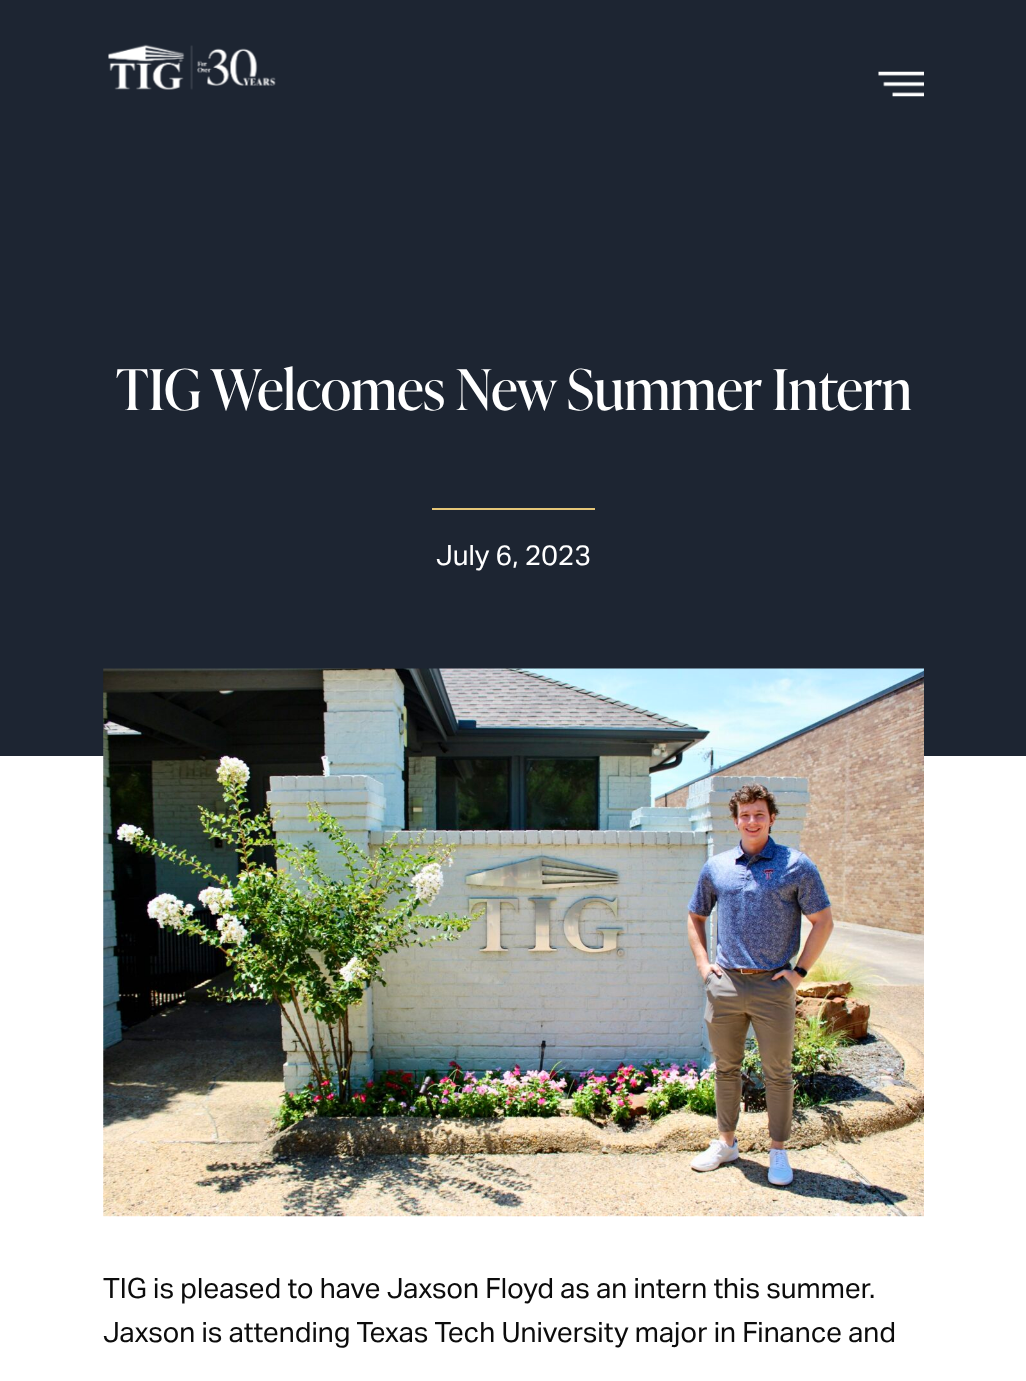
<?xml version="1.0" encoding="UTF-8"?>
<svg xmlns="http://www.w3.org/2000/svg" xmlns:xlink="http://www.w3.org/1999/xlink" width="1026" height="1381">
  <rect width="100%" height="100%" fill="#ffffff" />
  <rect width="1026" height="756" fill="#1d2532" />
  <image x="108" y="44" width="168" height="46" xlink:href="image1.png" />
  <image x="878" y="71" width="46" height="26" xlink:href="image2.png" />
  <rect x="432" y="508" width="163" height="2" fill="#e5c678" />
  <image x="103" y="668" width="821" height="549" xlink:href="image3.png" />
  <text x="116" y="410" style="font-family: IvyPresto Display; font-size: 56px; fill: #ffffff">TIG Welcomes New Summer Intern</text>
  <text x="436" y="565" style="font-family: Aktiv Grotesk; font-size: 28px; fill: #ffffff">July 6, 2023</text>
  <text x="103" y="1298" style="font-family: Aktiv Grotesk; font-size: 28px; fill: #0c0c0c">TIG is pleased to have Jaxson Floyd as an intern this summer.</text>
  <text x="103" y="1342" style="font-family: Aktiv Grotesk; font-size: 28px; fill: #0c0c0c">Jaxson is attending Texas Tech University major in Finance and</text>
</svg>
